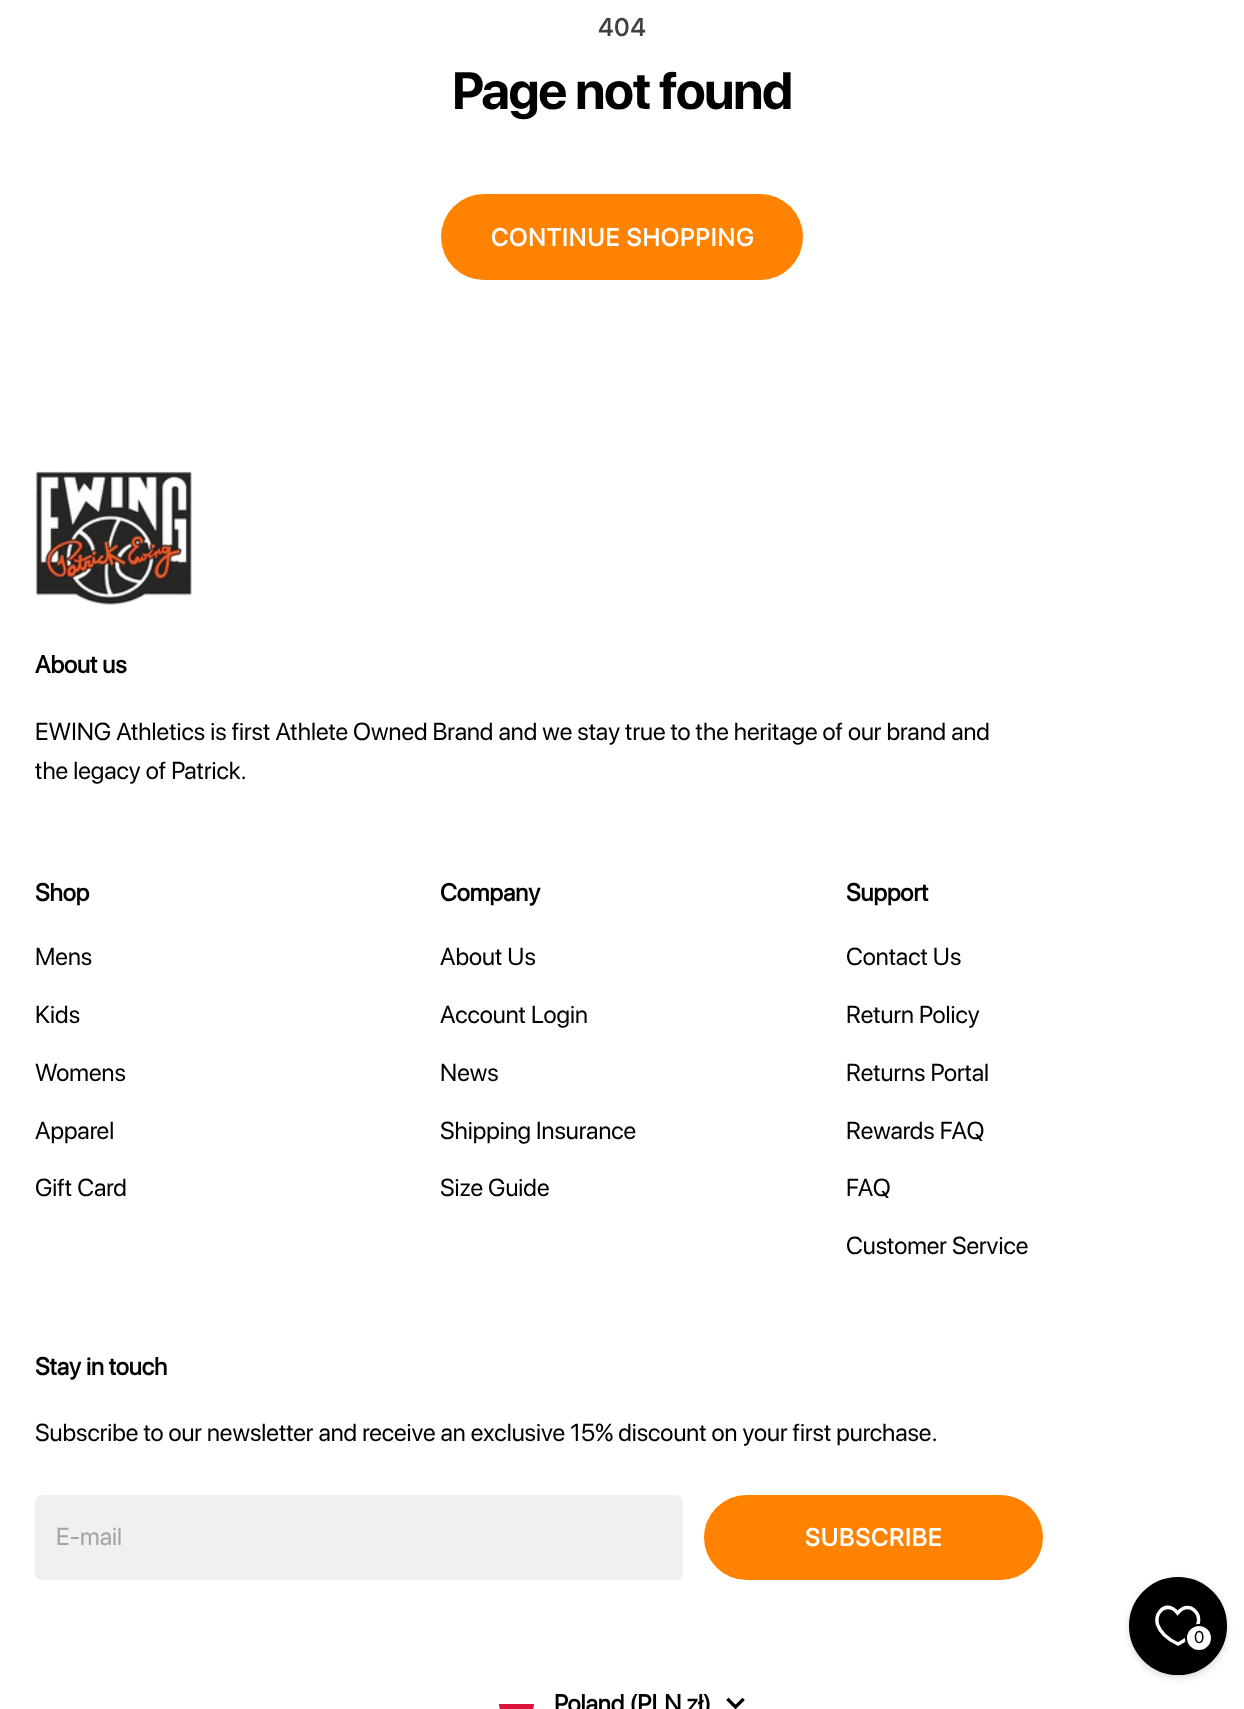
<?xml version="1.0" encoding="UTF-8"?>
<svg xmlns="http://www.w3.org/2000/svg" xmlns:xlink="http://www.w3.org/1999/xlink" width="1244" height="1709">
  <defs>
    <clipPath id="clip1"><rect x="499" y="1687" width="35" height="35" rx="17.5" /></clipPath>
  </defs>
  <rect width="100%" height="100%" fill="#ffffff" />
  <rect x="441" y="194" width="362" height="86" rx="43" fill="#ff8200" />
  <image x="35" y="471" width="157" height="134" xlink:href="image1.png" />
  <rect x="35" y="1495" width="648" height="85" rx="7" fill="#f0f0f0" />
  <rect x="704" y="1495" width="339" height="85" rx="42.5" fill="#ff8200" />
  <g clip-path="url(#clip1)">
    <path d="M 499 1704 h 35 v 0.5 c 0 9.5 -8 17.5 -17.5 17.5 c -9.5 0 -17.5 -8 -17.5 -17.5 z" fill="#dc143c" />
  </g>
  <path d="M 728.5 1700 l 7 7 l 7 -7" fill="none" stroke="#000000" stroke-width="3.3" stroke-linecap="square" />
  <rect x="1129" y="1580" width="98" height="98" rx="49" fill="#000000" fill-opacity="0.15" filter="blur(3.5px)" />
  <circle cx="1178" cy="1626" r="47" fill="#000000" stroke="#000000" stroke-width="4" />
  <path d="M 1178 1644 c -8.5 -4 -17.5 -10.5 -20.5 -19.5 c -2.5 -9.5 4.5 -20.5 15 -16 c 2 1 3.5 2.5 5 4.5 c 2 -2 3.5 -3.5 5.5 -4.5 c 9 -3.5 16.5 4.5 15.5 13 c -1.5 10.5 -11.5 18 -20.5 22.5 z" fill="none" stroke="#ffffff" stroke-width="3.5" />
  <circle cx="1199" cy="1638" r="13" fill="#ffffff" stroke="#000000" stroke-width="2" />
  <text x="598" y="36" style="font-family: SF Pro Display; font-size: 24.5px; font-weight: bold; letter-spacing: 1.25px; fill: #404040">404</text>
  <text x="452" y="109" style="font-family: 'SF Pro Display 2'; font-size: 52.25px; font-weight: bold; letter-spacing: -1.25px; fill: #000000">Page not found</text>
  <text x="491" y="246" style="font-family: SF Pro Display; font-size: 24.5px; font-weight: bold; letter-spacing: 1.25px; fill: #ffffff">CONTINUE SHOPPING</text>
  <text x="35" y="673" style="font-family: SF Pro Display; font-size: 24.5px; font-weight: bold; fill: #000000">About us</text>
  <text x="35" y="740" style="font-family: SF Pro Display; font-size: 24.5px; fill: #000000">EWING Athletics is first Athlete Owned Brand and we stay true to the heritage of our brand and</text>
  <text x="35" y="779" style="font-family: SF Pro Display; font-size: 24.5px; fill: #000000">the legacy of Patrick.</text>
  <text x="35" y="901" style="font-family: SF Pro Display; font-size: 24.5px; font-weight: bold; fill: #000000">Shop</text>
  <text x="35" y="965" style="font-family: SF Pro Display; font-size: 24.5px; fill: #000000">Mens</text>
  <text x="35" y="1023" style="font-family: SF Pro Display; font-size: 24.5px; fill: #000000">Kids</text>
  <text x="35" y="1081" style="font-family: SF Pro Display; font-size: 24.5px; fill: #000000">Womens</text>
  <text x="35" y="1139" style="font-family: SF Pro Display; font-size: 24.5px; fill: #000000">Apparel</text>
  <text x="35" y="1196" style="font-family: SF Pro Display; font-size: 24.5px; fill: #000000">Gift Card</text>
  <text x="440" y="901" style="font-family: SF Pro Display; font-size: 24.5px; font-weight: bold; fill: #000000">Company</text>
  <text x="440" y="965" style="font-family: SF Pro Display; font-size: 24.5px; fill: #000000">About Us</text>
  <text x="440" y="1023" style="font-family: SF Pro Display; font-size: 24.5px; fill: #000000">Account Login</text>
  <text x="440" y="1081" style="font-family: SF Pro Display; font-size: 24.5px; fill: #000000">News</text>
  <text x="440" y="1139" style="font-family: SF Pro Display; font-size: 24.5px; fill: #000000">Shipping Insurance</text>
  <text x="440" y="1196" style="font-family: SF Pro Display; font-size: 24.5px; fill: #000000">Size Guide</text>
  <text x="846" y="901" style="font-family: SF Pro Display; font-size: 24.5px; font-weight: bold; fill: #000000">Support</text>
  <text x="846" y="965" style="font-family: SF Pro Display; font-size: 24.5px; fill: #000000">Contact Us</text>
  <text x="846" y="1023" style="font-family: SF Pro Display; font-size: 24.5px; fill: #000000">Return Policy</text>
  <text x="846" y="1081" style="font-family: SF Pro Display; font-size: 24.5px; fill: #000000">Returns Portal</text>
  <text x="846" y="1139" style="font-family: SF Pro Display; font-size: 24.5px; fill: #000000">Rewards FAQ</text>
  <text x="846" y="1196" style="font-family: SF Pro Display; font-size: 24.5px; fill: #000000">FAQ</text>
  <text x="846" y="1254" style="font-family: SF Pro Display; font-size: 24.5px; fill: #000000">Customer Service</text>
  <text x="35" y="1375" style="font-family: SF Pro Display; font-size: 24.5px; font-weight: bold; fill: #000000">Stay in touch</text>
  <text x="35" y="1441" style="font-family: SF Pro Display; font-size: 24.5px; fill: #000000">Subscribe to our newsletter and receive an exclusive 15% discount on your first purchase.</text>
  <text x="56" y="1545" style="font-family: SF Pro Display; font-size: 24.5px; fill: #a3a3a3">E-mail</text>
  <text x="805" y="1546" style="font-family: SF Pro Display; font-size: 24.5px; font-weight: bold; letter-spacing: 1.25px; fill: #ffffff">SUBSCRIBE</text>
  <text x="554" y="1712" style="font-family: SF Pro Display; font-size: 24.5px; font-weight: bold; fill: #000000">Poland (PLN zł)</text>
  <text x="1194" y="1643" style="font-family: SF Pro Display; font-size: 17px; fill: #000000">0</text>
</svg>
